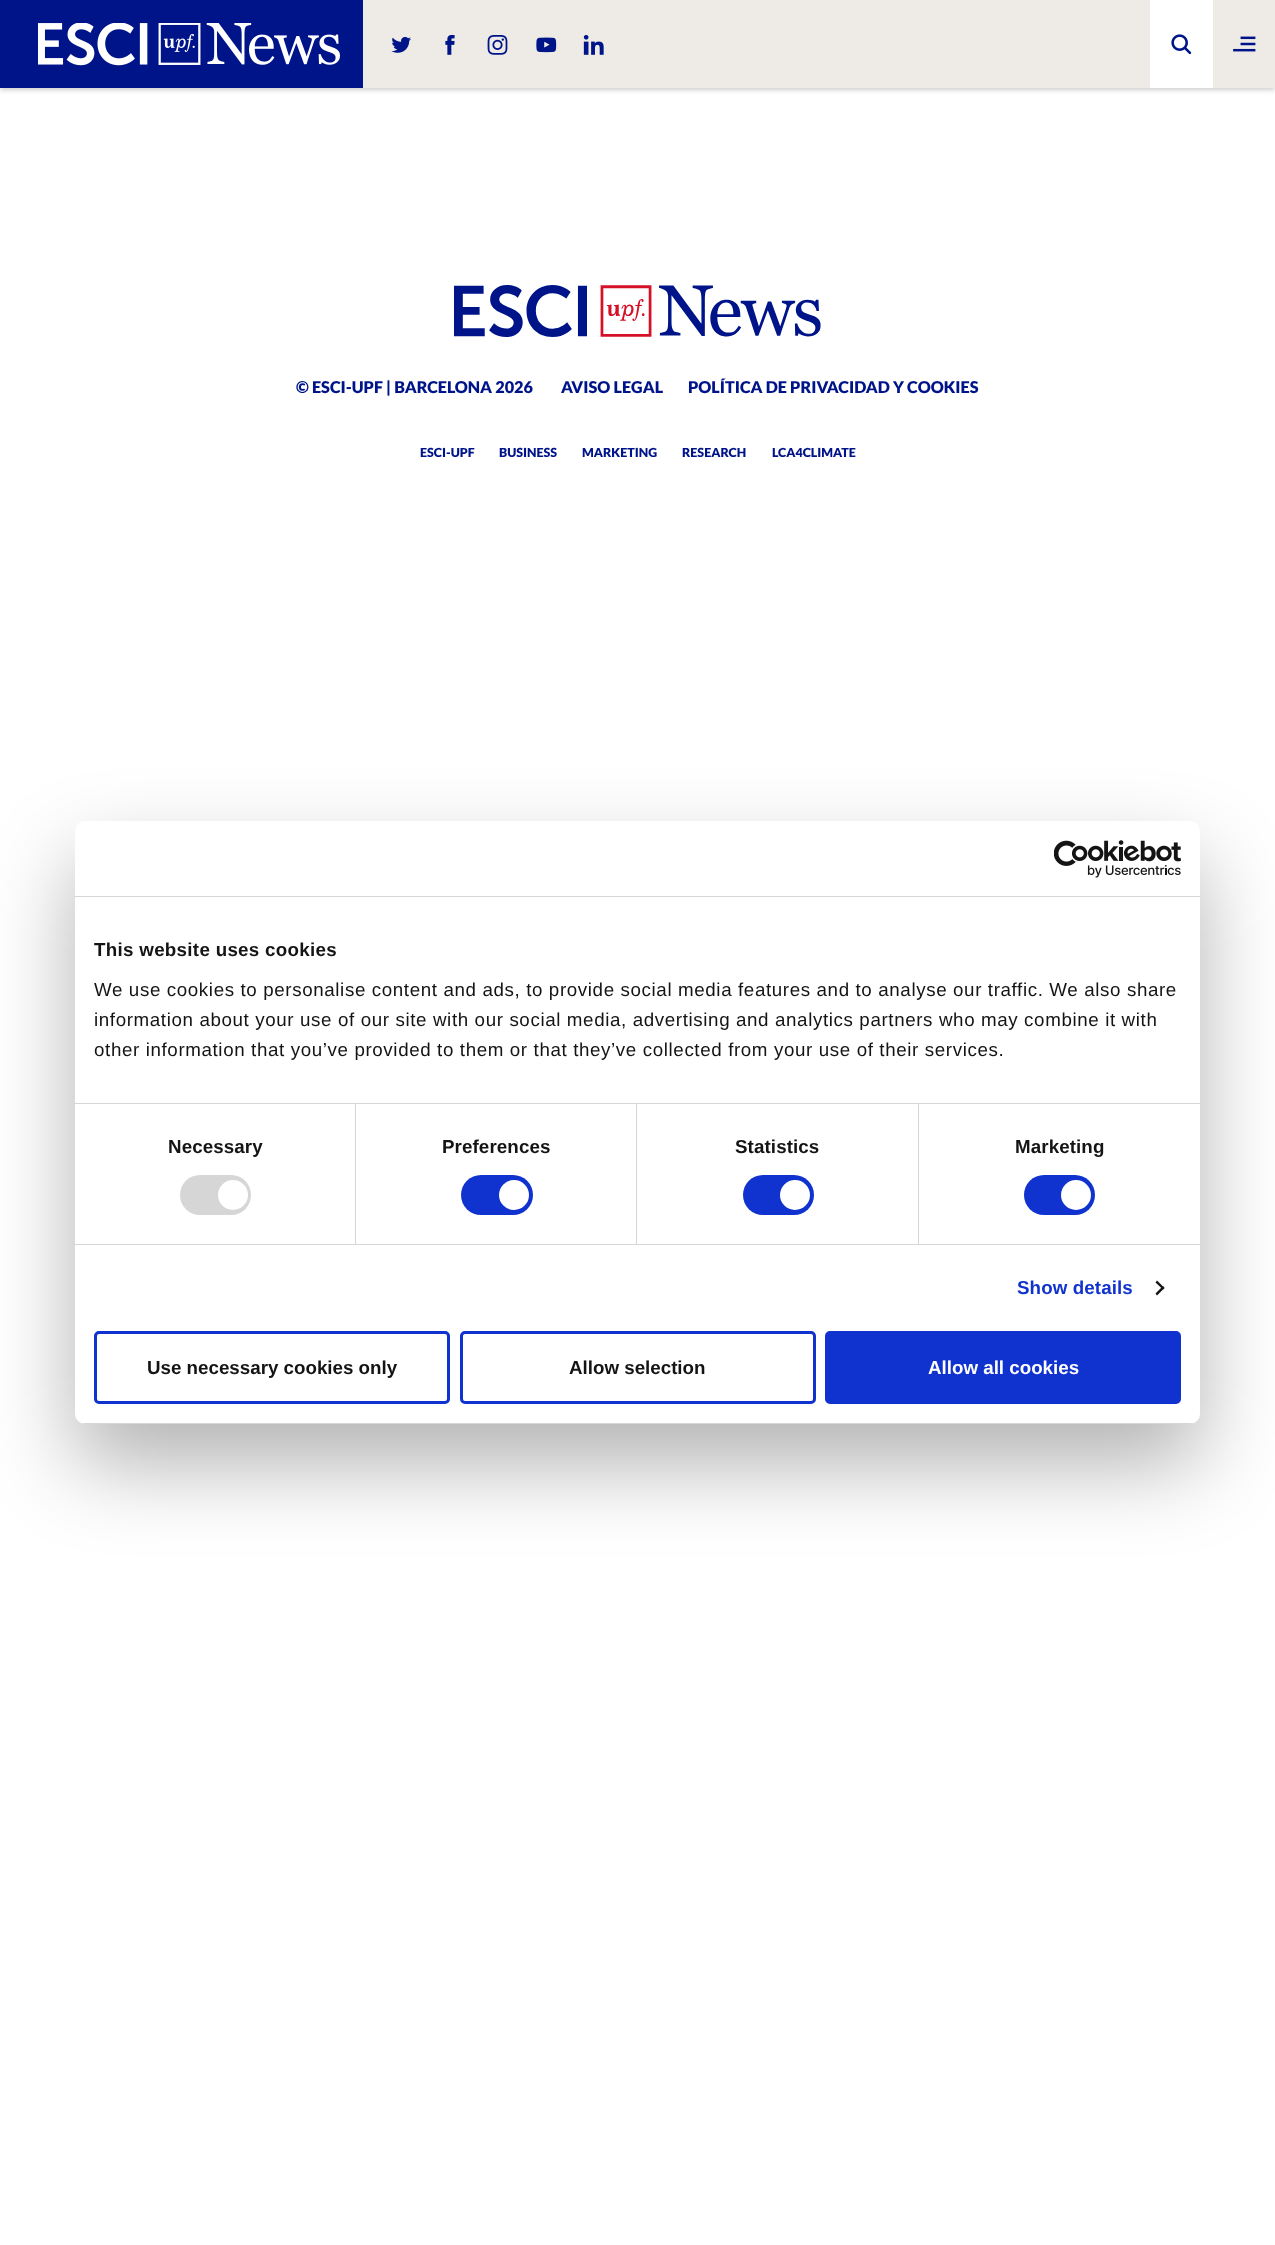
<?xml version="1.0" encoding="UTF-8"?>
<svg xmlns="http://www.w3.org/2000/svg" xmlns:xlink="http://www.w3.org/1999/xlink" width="1275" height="2245">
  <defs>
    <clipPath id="clip1"><rect x="75" y="821" width="1125" height="603" rx="10" /></clipPath>
  </defs>
  <rect width="100%" height="100%" fill="#ffffff" />
  <rect y="3" width="1275" height="87" fill="#000000" fill-opacity="0.2" filter="blur(2.5px)" />
  <rect x="363" width="912" height="88" fill="#eeebe6" />
  <rect width="363" height="88" fill="#001489" />
  <image x="38" y="23" width="302" height="43" xlink:href="image1.png" />
  <image x="391" y="37" width="20" height="16" xlink:href="image2.png" />
  <image x="445" y="35" width="10" height="20" xlink:href="image3.png" />
  <image x="487" y="35" width="21" height="20" xlink:href="image4.png" />
  <image x="536" y="37" width="21" height="16" xlink:href="image5.png" />
  <image x="583" y="35" width="21" height="20" xlink:href="image6.png" />
  <rect x="1150" width="63" height="88" fill="#ffffff" />
  <image x="1171" y="34" width="21" height="21" xlink:href="image7.png" />
  <image x="1233" y="36" width="23" height="16" xlink:href="image8.png" />
  <image x="454" y="285" width="367" height="52" xlink:href="image9.png" />
  <rect x="75" y="861" width="1125" height="603" rx="10" fill="#000000" fill-opacity="0.3" filter="blur(42.5px)" />
  <rect x="75" y="821" width="1125" height="603" rx="10" fill="#ffffff" />
  <rect x="75" y="896" width="1125" height="1" fill="#d6d6d6" />
  <image x="1054" y="840" width="127" height="38" xlink:href="image10.png" />
  <rect x="75" y="1103" width="1125" height="1" fill="#d6d6d6" />
  <rect x="75" y="1244" width="1125" height="1" fill="#d6d6d6" />
  <rect x="355" y="1104" width="1" height="140" fill="#d6d6d6" />
  <rect x="180" y="1175" width="71" height="40" rx="20" fill="#d6d6d6" />
  <circle cx="233" cy="1195" r="15" fill="#ffffff" />
  <rect x="636" y="1104" width="1" height="140" fill="#d6d6d6" />
  <rect x="461" y="1175" width="72" height="40" rx="20" fill="#1032cf" />
  <circle cx="514" cy="1195" r="15" fill="#ffffff" />
  <rect x="918" y="1104" width="1" height="140" fill="#d6d6d6" />
  <rect x="743" y="1175" width="71" height="40" rx="20" fill="#1032cf" />
  <circle cx="795" cy="1195" r="15" fill="#ffffff" />
  <rect x="1024" y="1175" width="71" height="40" rx="20" fill="#1032cf" />
  <circle cx="1076" cy="1195" r="15" fill="#ffffff" />
  <path d="M 1157 1280.5 l 7.5 7.5 l -1.5 1.5 l -7.5 -7 z" fill="#141414" />
  <path d="M 1163 1286 l 1.5 2 l -7.5 7.5 l -1.5 -2 z" fill="#141414" />
  <g clip-path="url(#clip1)">
    <rect x="75" y="1423" width="1125" height="1" fill="#d6d6d6" />
  </g>
  <rect x="95.5" y="1332.5" width="353" height="70" rx="3.5" fill="none" stroke="#1032cf" stroke-width="3" />
  <rect x="461.5" y="1332.5" width="353" height="70" rx="3.5" fill="none" stroke="#1032cf" stroke-width="3" />
  <rect x="826.5" y="1332.5" width="353" height="70" rx="3.5" fill="#1032cf" stroke="#1032cf" stroke-width="3" />
  <text x="296" y="393" style="font-family: Lato; font-size: 16.25px; font-weight: 900; fill: #001489">© ESCI-UPF | BARCELONA 2026</text>
  <text x="561" y="393" style="font-family: Lato; font-size: 16.25px; font-weight: 900; fill: #001489">AVISO LEGAL</text>
  <text x="688" y="393" style="font-family: Lato; font-size: 16.25px; font-weight: 900; fill: #001489">POLÍTICA DE PRIVACIDAD Y COOKIES</text>
  <text x="420" y="457" style="font-family: Lato; font-size: 12.5px; font-weight: 900; fill: #001489">ESCI-UPF</text>
  <text x="499" y="457" style="font-family: Lato; font-size: 12.5px; font-weight: 900; fill: #001489">BUSINESS</text>
  <text x="582" y="457" style="font-family: Lato; font-size: 12.5px; font-weight: 900; fill: #001489">MARKETING</text>
  <text x="682" y="457" style="font-family: Lato; font-size: 12.5px; font-weight: 900; fill: #001489">RESEARCH</text>
  <text x="772" y="457" style="font-family: Lato; font-size: 12.5px; font-weight: 900; fill: #001489">LCA4CLIMATE</text>
  <text x="94" y="956" style="font-family: Liberation Sans; font-size: 18.75px; font-weight: bold; letter-spacing: 0.3px; fill: #141414">This website uses cookies</text>
  <text x="94" y="996" style="font-family: Liberation Sans; font-size: 18.75px; letter-spacing: 0.62px; fill: #141414">We use cookies to personalise content and ads, to provide social media features and to analyse our traffic. We also share</text>
  <text x="94" y="1026" style="font-family: Liberation Sans; font-size: 18.75px; letter-spacing: 0.62px; fill: #141414">information about your use of our site with our social media, advertising and analytics partners who may combine it with</text>
  <text x="94" y="1056" style="font-family: Liberation Sans; font-size: 18.75px; letter-spacing: 0.62px; fill: #141414">other information that you’ve provided to them or that they’ve collected from your use of their services.</text>
  <text x="168" y="1153" style="font-family: Liberation Sans; font-size: 18.75px; font-weight: bold; letter-spacing: 0.1px; fill: #141414">Necessary</text>
  <text x="442" y="1153" style="font-family: Liberation Sans; font-size: 18.75px; font-weight: bold; letter-spacing: 0.1px; fill: #141414">Preferences</text>
  <text x="735" y="1153" style="font-family: Liberation Sans; font-size: 18.75px; font-weight: bold; letter-spacing: 0.1px; fill: #141414">Statistics</text>
  <text x="1015" y="1153" style="font-family: Liberation Sans; font-size: 18.75px; font-weight: bold; letter-spacing: 0.1px; fill: #141414">Marketing</text>
  <text x="1017" y="1294" style="font-family: Liberation Sans; font-size: 18.75px; font-weight: bold; letter-spacing: 0.1px; fill: #1032cf">Show details</text>
  <text x="147" y="1374" style="font-family: Liberation Sans; font-size: 18.75px; font-weight: bold; fill: #141414">Use necessary cookies only</text>
  <text x="569" y="1374" style="font-family: Liberation Sans; font-size: 18.75px; font-weight: bold; fill: #141414">Allow selection</text>
  <text x="928" y="1374" style="font-family: Liberation Sans; font-size: 18.75px; font-weight: bold; fill: #ffffff">Allow all cookies</text>
</svg>
